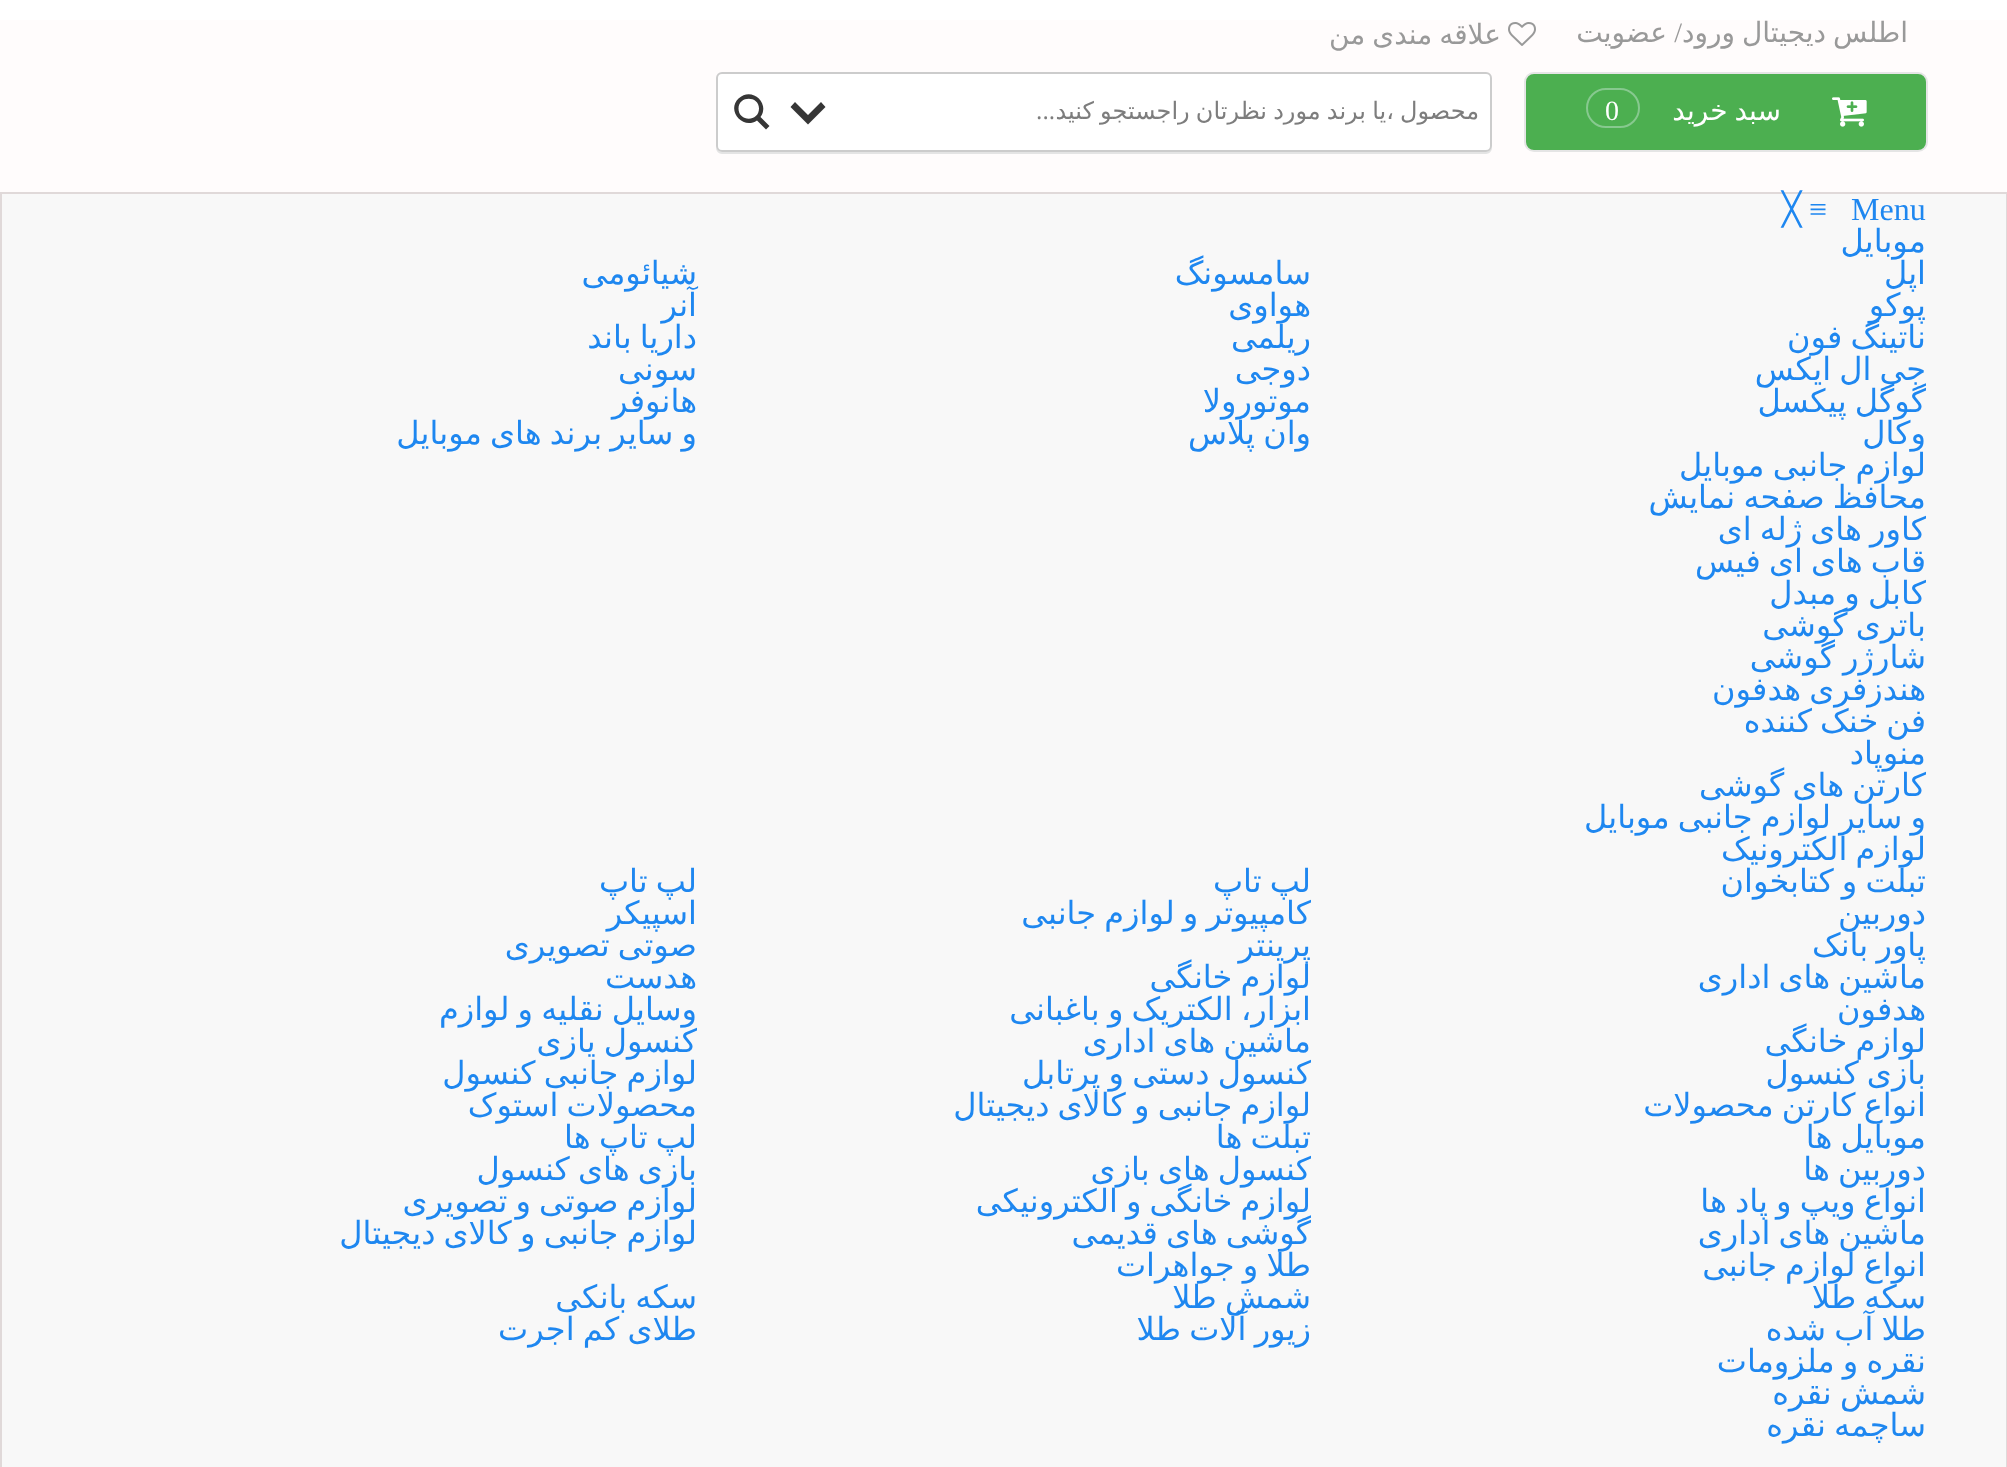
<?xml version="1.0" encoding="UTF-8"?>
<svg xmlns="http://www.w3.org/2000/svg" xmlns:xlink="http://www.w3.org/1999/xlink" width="2007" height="1467">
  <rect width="100%" height="100%" fill="#ffffff" />
  <rect y="20" width="2007" height="172" fill="#fffcfc" />
  <image x="1508" y="22" width="28" height="24" xlink:href="image1.png" />
  <rect x="1525" y="73" width="402" height="78" rx="9" fill="#4caf50" stroke="#e5e5e5" stroke-width="2" />
  <image x="1832" y="97" width="35" height="30" xlink:href="image2.png" />
  <rect x="1587" y="89" width="52" height="38" rx="19" fill="none" stroke="#87c98f" stroke-width="2" />
  <path d="M 716 146 v 2 c 0 3 3 6 6 6 h 764 c 3 0 6 -3 6 -6 v -2 c 0 3 -3 6 -6 6 h -764 c -3 0 -6 -3 -6 -6 z" fill="#e4e4e4" />
  <rect x="717" y="73" width="774" height="78" rx="5" fill="#ffffff" stroke="#cccccc" stroke-width="2" />
  <path d="M 821 102 l 4.5 5 l -17.5 17.5 l -17.5 -17.5 l 4.5 -5 l 13 13 z" fill="#363636" />
  <path d="M 769.5 126 l -9 -9 c 10 -14 -9 -31 -22 -18.5 c -12.5 12.5 4.5 31.5 18.5 22 l 9 9 z m -31 -17.5 c 0 -13 20.5 -13 20.5 0 c 0 13.5 -20.5 13.5 -20.5 0 z" fill="#363636" />
  <rect x="1" y="193" width="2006" height="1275" fill="#f8f8f8" stroke="#e0d9d9" stroke-width="2" />
  <text x="1908" y="42" word-spacing="-2" style="font-family: DejaVu Sans; font-size: 28px; direction: rtl; fill: #999999">اطلس دیجیتال</text>
  <text x="1735" y="42" style="font-family: DejaVu Sans; font-size: 28px; direction: rtl; fill: #999999">ورود</text>
  <text x="1682" y="42" style="font-family: Liberation Serif; font-size: 28px; direction: rtl; fill: #999999">/</text>
  <text x="1667" y="42" style="font-family: DejaVu Sans; font-size: 28px; direction: rtl; fill: #999999">عضویت</text>
  <text x="1501" y="44" word-spacing="-2" style="font-family: DejaVu Sans; font-size: 28px; direction: rtl; fill: #999999">علاقه مندی من</text>
  <text x="1781" y="120" word-spacing="-2" style="font-family: DejaVu Sans; font-size: 28px; direction: rtl; fill: #ffffff">سبد خرید</text>
  <text x="1605" y="120" style="font-family: Liberation Serif; font-size: 28px; fill: #ffffff">0</text>
  <text x="1479" y="119" word-spacing="-1.5" style="font-family: DejaVu Sans; font-size: 24px; direction: rtl; fill: #7d7d7d">محصول ،یا برند مورد نظرتان راجستجو کنید</text>
  <text x="1055" y="119" style="font-family: Open Sans; font-size: 24px; direction: rtl; fill: #7d7d7d">...</text>
  <text x="1851" y="220" style="font-family: Liberation Serif; font-size: 32px; fill: #1e87f0">Menu</text>
  <text x="1809" y="220" style="font-family: Liberation Serif; font-size: 32px; fill: #1e87f0">≡</text>
  <text x="1782" y="220" style="font-family: DejaVu Sans; font-size: 32px; fill: #1e87f0">╳</text>
  <text x="1926" y="252" style="font-family: DejaVu Sans; font-size: 32px; direction: rtl; fill: #1e87f0">موبایل</text>
  <text x="1926" y="284" style="font-family: DejaVu Sans; font-size: 32px; direction: rtl; fill: #1e87f0">اپل</text>
  <text x="1311" y="284" style="font-family: DejaVu Sans; font-size: 32px; direction: rtl; fill: #1e87f0">سامسونگ</text>
  <text x="697" y="284" style="font-family: DejaVu Sans; font-size: 32px; direction: rtl; fill: #1e87f0">شیائومی</text>
  <text x="1926" y="316" style="font-family: DejaVu Sans; font-size: 32px; direction: rtl; fill: #1e87f0">پوکو</text>
  <text x="1311" y="316" style="font-family: DejaVu Sans; font-size: 32px; direction: rtl; fill: #1e87f0">هواوی</text>
  <text x="697" y="316" style="font-family: DejaVu Sans; font-size: 32px; direction: rtl; fill: #1e87f0">آنر</text>
  <text x="1926" y="348" word-spacing="-2" style="font-family: DejaVu Sans; font-size: 32px; direction: rtl; fill: #1e87f0">ناتینگ فون</text>
  <text x="1311" y="348" style="font-family: DejaVu Sans; font-size: 32px; direction: rtl; fill: #1e87f0">ریلمی</text>
  <text x="697" y="348" word-spacing="-2" style="font-family: DejaVu Sans; font-size: 32px; direction: rtl; fill: #1e87f0">داریا باند</text>
  <text x="1926" y="380" word-spacing="-2" style="font-family: DejaVu Sans; font-size: 32px; direction: rtl; fill: #1e87f0">جی ال ایکس</text>
  <text x="1311" y="380" style="font-family: DejaVu Sans; font-size: 32px; direction: rtl; fill: #1e87f0">دوجی</text>
  <text x="697" y="380" style="font-family: DejaVu Sans; font-size: 32px; direction: rtl; fill: #1e87f0">سونی</text>
  <text x="1926" y="412" word-spacing="-2" style="font-family: DejaVu Sans; font-size: 32px; direction: rtl; fill: #1e87f0">گوگل پیکسل</text>
  <text x="1311" y="412" style="font-family: DejaVu Sans; font-size: 32px; direction: rtl; fill: #1e87f0">موتورولا</text>
  <text x="697" y="412" style="font-family: DejaVu Sans; font-size: 32px; direction: rtl; fill: #1e87f0">هانوفر</text>
  <text x="1926" y="444" style="font-family: DejaVu Sans; font-size: 32px; direction: rtl; fill: #1e87f0">وکال</text>
  <text x="1311" y="444" word-spacing="-2" style="font-family: DejaVu Sans; font-size: 32px; direction: rtl; fill: #1e87f0">وان پلاس</text>
  <text x="697" y="444" word-spacing="-2" style="font-family: DejaVu Sans; font-size: 32px; direction: rtl; fill: #1e87f0">و سایر برند های موبایل</text>
  <text x="1926" y="476" word-spacing="-2" style="font-family: DejaVu Sans; font-size: 32px; direction: rtl; fill: #1e87f0">لوازم جانبی موبایل</text>
  <text x="1926" y="508" word-spacing="-2" style="font-family: DejaVu Sans; font-size: 32px; direction: rtl; fill: #1e87f0">محافظ صفحه نمایش</text>
  <text x="1926" y="540" word-spacing="-2" style="font-family: DejaVu Sans; font-size: 32px; direction: rtl; fill: #1e87f0">کاور های ژله ای</text>
  <text x="1926" y="572" word-spacing="-2" style="font-family: DejaVu Sans; font-size: 32px; direction: rtl; fill: #1e87f0">قاب های ای فیس</text>
  <text x="1926" y="604" word-spacing="-2" style="font-family: DejaVu Sans; font-size: 32px; direction: rtl; fill: #1e87f0">کابل و مبدل</text>
  <text x="1926" y="636" word-spacing="-2" style="font-family: DejaVu Sans; font-size: 32px; direction: rtl; fill: #1e87f0">باتری گوشی</text>
  <text x="1926" y="668" word-spacing="-2" style="font-family: DejaVu Sans; font-size: 32px; direction: rtl; fill: #1e87f0">شارژر گوشی</text>
  <text x="1926" y="700" word-spacing="-2" style="font-family: DejaVu Sans; font-size: 32px; direction: rtl; fill: #1e87f0">هندزفری هدفون</text>
  <text x="1926" y="732" word-spacing="-2" style="font-family: DejaVu Sans; font-size: 32px; direction: rtl; fill: #1e87f0">فن خنک کننده</text>
  <text x="1926" y="764" style="font-family: DejaVu Sans; font-size: 32px; direction: rtl; fill: #1e87f0">منوپاد</text>
  <text x="1926" y="796" word-spacing="-2" style="font-family: DejaVu Sans; font-size: 32px; direction: rtl; fill: #1e87f0">کارتن های گوشی</text>
  <text x="1926" y="828" word-spacing="-2" style="font-family: DejaVu Sans; font-size: 32px; direction: rtl; fill: #1e87f0">و سایر لوازم جانبی موبایل</text>
  <text x="1926" y="860" word-spacing="-2" style="font-family: DejaVu Sans; font-size: 32px; direction: rtl; fill: #1e87f0">لوازم الکترونیک</text>
  <text x="1926" y="892" word-spacing="-2" style="font-family: DejaVu Sans; font-size: 32px; direction: rtl; fill: #1e87f0">تبلت و کتابخوان</text>
  <text x="1311" y="892" word-spacing="-2" style="font-family: DejaVu Sans; font-size: 32px; direction: rtl; fill: #1e87f0">لپ تاپ</text>
  <text x="697" y="892" word-spacing="-2" style="font-family: DejaVu Sans; font-size: 32px; direction: rtl; fill: #1e87f0">لپ تاپ</text>
  <text x="1926" y="924" style="font-family: DejaVu Sans; font-size: 32px; direction: rtl; fill: #1e87f0">دوربین</text>
  <text x="1311" y="924" word-spacing="-2" style="font-family: DejaVu Sans; font-size: 32px; direction: rtl; fill: #1e87f0">کامپیوتر و لوازم جانبی</text>
  <text x="697" y="924" style="font-family: DejaVu Sans; font-size: 32px; direction: rtl; fill: #1e87f0">اسپیکر</text>
  <text x="1926" y="956" word-spacing="-2" style="font-family: DejaVu Sans; font-size: 32px; direction: rtl; fill: #1e87f0">پاور بانک</text>
  <text x="1311" y="956" style="font-family: DejaVu Sans; font-size: 32px; direction: rtl; fill: #1e87f0">پرینتر</text>
  <text x="697" y="956" word-spacing="-2" style="font-family: DejaVu Sans; font-size: 32px; direction: rtl; fill: #1e87f0">صوتی تصویری</text>
  <text x="1926" y="988" word-spacing="-2" style="font-family: DejaVu Sans; font-size: 32px; direction: rtl; fill: #1e87f0">ماشین های اداری</text>
  <text x="1311" y="988" word-spacing="-2" style="font-family: DejaVu Sans; font-size: 32px; direction: rtl; fill: #1e87f0">لوازم خانگی</text>
  <text x="697" y="988" style="font-family: DejaVu Sans; font-size: 32px; direction: rtl; fill: #1e87f0">هدست</text>
  <text x="1926" y="1020" style="font-family: DejaVu Sans; font-size: 32px; direction: rtl; fill: #1e87f0">هدفون</text>
  <text x="1311" y="1020" word-spacing="-2" style="font-family: DejaVu Sans; font-size: 32px; direction: rtl; fill: #1e87f0">ابزار، الکتریک و باغبانی</text>
  <text x="697" y="1020" word-spacing="-2" style="font-family: DejaVu Sans; font-size: 32px; direction: rtl; fill: #1e87f0">وسایل نقلیه و لوازم</text>
  <text x="1926" y="1052" word-spacing="-2" style="font-family: DejaVu Sans; font-size: 32px; direction: rtl; fill: #1e87f0">لوازم خانگی</text>
  <text x="1311" y="1052" word-spacing="-2" style="font-family: DejaVu Sans; font-size: 32px; direction: rtl; fill: #1e87f0">ماشین های اداری</text>
  <text x="697" y="1052" word-spacing="-2" style="font-family: DejaVu Sans; font-size: 32px; direction: rtl; fill: #1e87f0">کنسول یازی</text>
  <text x="1926" y="1084" word-spacing="-2" style="font-family: DejaVu Sans; font-size: 32px; direction: rtl; fill: #1e87f0">بازی کنسول</text>
  <text x="1311" y="1084" word-spacing="-2" style="font-family: DejaVu Sans; font-size: 32px; direction: rtl; fill: #1e87f0">کنسول دستی و پرتابل</text>
  <text x="697" y="1084" word-spacing="-2" style="font-family: DejaVu Sans; font-size: 32px; direction: rtl; fill: #1e87f0">لوازم جانبی کنسول</text>
  <text x="1926" y="1116" word-spacing="-2" style="font-family: DejaVu Sans; font-size: 32px; direction: rtl; fill: #1e87f0">انواع کارتن محصولات</text>
  <text x="1311" y="1116" word-spacing="-2" style="font-family: DejaVu Sans; font-size: 32px; direction: rtl; fill: #1e87f0">لوازم جانبی و کالای دیجیتال</text>
  <text x="697" y="1116" word-spacing="-2" style="font-family: DejaVu Sans; font-size: 32px; direction: rtl; fill: #1e87f0">محصولات استوک</text>
  <text x="1926" y="1148" word-spacing="-2" style="font-family: DejaVu Sans; font-size: 32px; direction: rtl; fill: #1e87f0">موبایل ها</text>
  <text x="1311" y="1148" word-spacing="-2" style="font-family: DejaVu Sans; font-size: 32px; direction: rtl; fill: #1e87f0">تبلت ها</text>
  <text x="697" y="1148" word-spacing="-2" style="font-family: DejaVu Sans; font-size: 32px; direction: rtl; fill: #1e87f0">لپ تاپ ها</text>
  <text x="1926" y="1180" word-spacing="-2" style="font-family: DejaVu Sans; font-size: 32px; direction: rtl; fill: #1e87f0">دوربین ها</text>
  <text x="1311" y="1180" word-spacing="-2" style="font-family: DejaVu Sans; font-size: 32px; direction: rtl; fill: #1e87f0">کنسول های بازی</text>
  <text x="697" y="1180" word-spacing="-2" style="font-family: DejaVu Sans; font-size: 32px; direction: rtl; fill: #1e87f0">بازی های کنسول</text>
  <text x="1926" y="1212" word-spacing="-2" style="font-family: DejaVu Sans; font-size: 32px; direction: rtl; fill: #1e87f0">انواع ویپ و پاد ها</text>
  <text x="1311" y="1212" word-spacing="-2" style="font-family: DejaVu Sans; font-size: 32px; direction: rtl; fill: #1e87f0">لوازم خانگی و الکترونیکی</text>
  <text x="697" y="1212" word-spacing="-2" style="font-family: DejaVu Sans; font-size: 32px; direction: rtl; fill: #1e87f0">لوازم صوتی و تصویری</text>
  <text x="1926" y="1244" word-spacing="-2" style="font-family: DejaVu Sans; font-size: 32px; direction: rtl; fill: #1e87f0">ماشین های اداری</text>
  <text x="1311" y="1244" word-spacing="-2" style="font-family: DejaVu Sans; font-size: 32px; direction: rtl; fill: #1e87f0">گوشی های قدیمی</text>
  <text x="697" y="1244" word-spacing="-2" style="font-family: DejaVu Sans; font-size: 32px; direction: rtl; fill: #1e87f0">لوازم جانبی و کالای دیجیتال</text>
  <text x="1926" y="1276" word-spacing="-2" style="font-family: DejaVu Sans; font-size: 32px; direction: rtl; fill: #1e87f0">انواع لوازم جانبی</text>
  <text x="1311" y="1276" word-spacing="-2" style="font-family: DejaVu Sans; font-size: 32px; direction: rtl; fill: #1e87f0">طلا و جواهرات</text>
  <text x="1926" y="1308" word-spacing="-2" style="font-family: DejaVu Sans; font-size: 32px; direction: rtl; fill: #1e87f0">سکه طلا</text>
  <text x="1311" y="1308" word-spacing="-2" style="font-family: DejaVu Sans; font-size: 32px; direction: rtl; fill: #1e87f0">شمش طلا</text>
  <text x="697" y="1308" word-spacing="-2" style="font-family: DejaVu Sans; font-size: 32px; direction: rtl; fill: #1e87f0">سکه بانکی</text>
  <text x="1926" y="1340" word-spacing="-2" style="font-family: DejaVu Sans; font-size: 32px; direction: rtl; fill: #1e87f0">طلا آب شده</text>
  <text x="1311" y="1340" word-spacing="-2" style="font-family: DejaVu Sans; font-size: 32px; direction: rtl; fill: #1e87f0">زیور آلات طلا</text>
  <text x="697" y="1340" word-spacing="-2" style="font-family: DejaVu Sans; font-size: 32px; direction: rtl; fill: #1e87f0">طلای کم اجرت</text>
  <text x="1926" y="1372" word-spacing="-2" style="font-family: DejaVu Sans; font-size: 32px; direction: rtl; fill: #1e87f0">نقره و ملزومات</text>
  <text x="1926" y="1404" word-spacing="-2" style="font-family: DejaVu Sans; font-size: 32px; direction: rtl; fill: #1e87f0">شمش نقره</text>
  <text x="1926" y="1436" word-spacing="-2" style="font-family: DejaVu Sans; font-size: 32px; direction: rtl; fill: #1e87f0">ساچمه نقره</text>
</svg>
